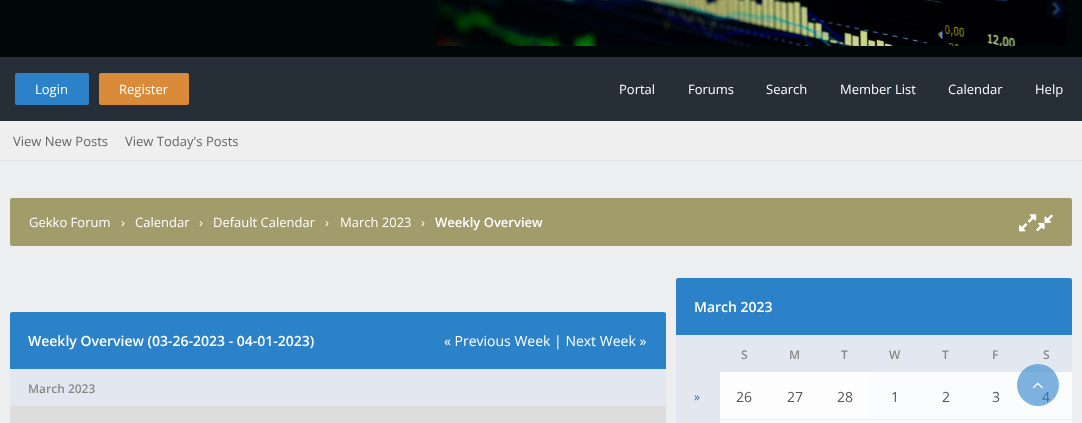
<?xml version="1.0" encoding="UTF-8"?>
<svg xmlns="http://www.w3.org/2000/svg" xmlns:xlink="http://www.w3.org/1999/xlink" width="1082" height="423">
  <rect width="100%" height="100%" fill="#eceef0" />
  <rect width="1082" height="57" fill="#000708" />
  <image x="436" y="0" width="631" height="46" xlink:href="image1.png" />
  <rect y="57" width="1082" height="64" fill="#262e38" />
  <rect x="15" y="73" width="74" height="32" rx="2" fill="#2c82c9" />
  <rect x="99" y="73" width="90" height="32" rx="2" fill="#d98b3a" />
  <rect y="121" width="1082" height="39" fill="#efefef" />
  <rect y="160" width="1082" height="1" fill="#e3e3e3" />
  <rect x="10" y="198" width="1062" height="48" rx="2" fill="#a19c69" />
  <image x="1036" y="214" width="17" height="18" xlink:href="image3.png" />
  <image x="1019" y="214" width="18" height="18" xlink:href="image2.png" />
  <path d="M 12 312 h 652 c 1 0 2 1 2 2 v 55 h -656 v -55 c 0 -1 1 -2 2 -2 z" fill="#2c82c9" />
  <rect x="10" y="369" width="656" height="37" fill="#e3e8f0" />
  <rect x="10" y="406" width="656" height="17" fill="#dddddd" />
  <path d="M 678 278 h 392 c 1 0 2 1 2 2 v 55 h -396 v -55 c 0 -1 1 -2 2 -2 z" fill="#2c82c9" />
  <rect x="676" y="335" width="396" height="37" fill="#e3e8f0" />
  <rect x="676" y="372" width="44" height="51" fill="#e3e8f0" />
  <rect x="720" y="372" width="151" height="47" fill="#fdfdfd" />
  <rect x="720" y="419" width="352" height="1" fill="#f0f0f0" />
  <rect x="871" y="372" width="201" height="47" fill="#fafbfc" />
  <rect x="720" y="420" width="352" height="3" fill="#fafbfc" />
  <text x="35" y="94" style="font-family: Open Sans; font-size: 13px; fill: #ffffff">Login</text>
  <text x="119" y="94" style="font-family: Open Sans; font-size: 13px; fill: #ffffff">Register</text>
  <text x="619" y="94" style="font-family: Open Sans; font-size: 13px; fill: #ffffff">Portal</text>
  <text x="688" y="94" style="font-family: Open Sans; font-size: 13px; fill: #ffffff">Forums</text>
  <text x="766" y="94" style="font-family: Open Sans; font-size: 13px; fill: #ffffff">Search</text>
  <text x="840" y="94" style="font-family: Open Sans; font-size: 13px; fill: #ffffff">Member List</text>
  <text x="948" y="94" style="font-family: Open Sans; font-size: 13px; fill: #ffffff">Calendar</text>
  <text x="1035" y="94" style="font-family: Open Sans; font-size: 13px; fill: #ffffff">Help</text>
  <text x="13" y="146" style="font-family: Open Sans; font-size: 13px; fill: #666666">View New Posts</text>
  <text x="125" y="146" style="font-family: Open Sans; font-size: 13px; fill: #666666">View Today's Posts</text>
  <text x="29" y="227" style="font-family: Open Sans; font-size: 13px; fill: #ffffff">Gekko Forum</text>
  <text x="121" y="227" style="font-family: Open Sans; font-size: 13px; fill: #ffffff">›</text>
  <text x="135" y="227" style="font-family: Open Sans; font-size: 13px; fill: #ffffff">Calendar</text>
  <text x="199" y="227" style="font-family: Open Sans; font-size: 13px; fill: #ffffff">›</text>
  <text x="213" y="227" style="font-family: Open Sans; font-size: 13px; fill: #ffffff">Default Calendar</text>
  <text x="325" y="227" style="font-family: Open Sans; font-size: 13px; fill: #ffffff">›</text>
  <text x="340" y="227" style="font-family: Open Sans; font-size: 13px; fill: #ffffff">March 2023</text>
  <text x="421" y="227" style="font-family: Open Sans; font-size: 13px; fill: #ffffff">›</text>
  <text x="435" y="227" style="font-family: Open Sans; font-size: 13px; font-weight: 600; fill: #ffffff">Weekly Overview</text>
  <text x="28" y="346" style="font-family: Open Sans; font-size: 14px; font-weight: 600; fill: #ffffff">Weekly Overview (03-26-2023 - 04-01-2023)</text>
  <text x="444" y="346" style="font-family: Open Sans; font-size: 14px; fill: #ffffff">« Previous Week | Next Week »</text>
  <text x="28" y="393" style="font-family: Open Sans; font-size: 12px; font-weight: 600; fill: #888888">March 2023</text>
  <text x="694" y="312" style="font-family: Open Sans; font-size: 14px; font-weight: 600; fill: #ffffff">March 2023</text>
  <text x="741" y="359" style="font-family: Open Sans; font-size: 12px; font-weight: 600; fill: #888888">S</text>
  <text x="789" y="359" style="font-family: Open Sans; font-size: 12px; font-weight: 600; fill: #888888">M</text>
  <text x="841" y="359" style="font-family: Open Sans; font-size: 12px; font-weight: 600; fill: #888888">T</text>
  <text x="889" y="359" style="font-family: Open Sans; font-size: 12px; font-weight: 600; fill: #888888">W</text>
  <text x="942" y="359" style="font-family: Open Sans; font-size: 12px; font-weight: 600; fill: #888888">T</text>
  <text x="992" y="359" style="font-family: Open Sans; font-size: 12px; font-weight: 600; fill: #888888">F</text>
  <text x="1043" y="359" style="font-family: Open Sans; font-size: 12px; font-weight: 600; fill: #888888">S</text>
  <text x="694" y="401" style="font-family: Open Sans; font-size: 12px; fill: #3c699c">»</text>
  <text x="736" y="402" style="font-family: Open Sans; font-size: 14px; fill: #555555">26</text>
  <text x="787" y="402" style="font-family: Open Sans; font-size: 14px; fill: #555555">27</text>
  <text x="837" y="402" style="font-family: Open Sans; font-size: 14px; fill: #555555">28</text>
  <text x="891" y="402" style="font-family: Open Sans; font-size: 14px; fill: #555555">1</text>
  <text x="942" y="402" style="font-family: Open Sans; font-size: 14px; fill: #555555">2</text>
  <text x="992" y="402" style="font-family: Open Sans; font-size: 14px; fill: #555555">3</text>
  <text x="1042" y="402" style="font-family: Open Sans; font-size: 14px; fill: #555555">4</text>
  <circle cx="1038" cy="385" r="21" fill="#2c82c9" fill-opacity="0.6" />
  <image x="1032" y="382" width="11" height="7" xlink:href="image4.png" />
</svg>
